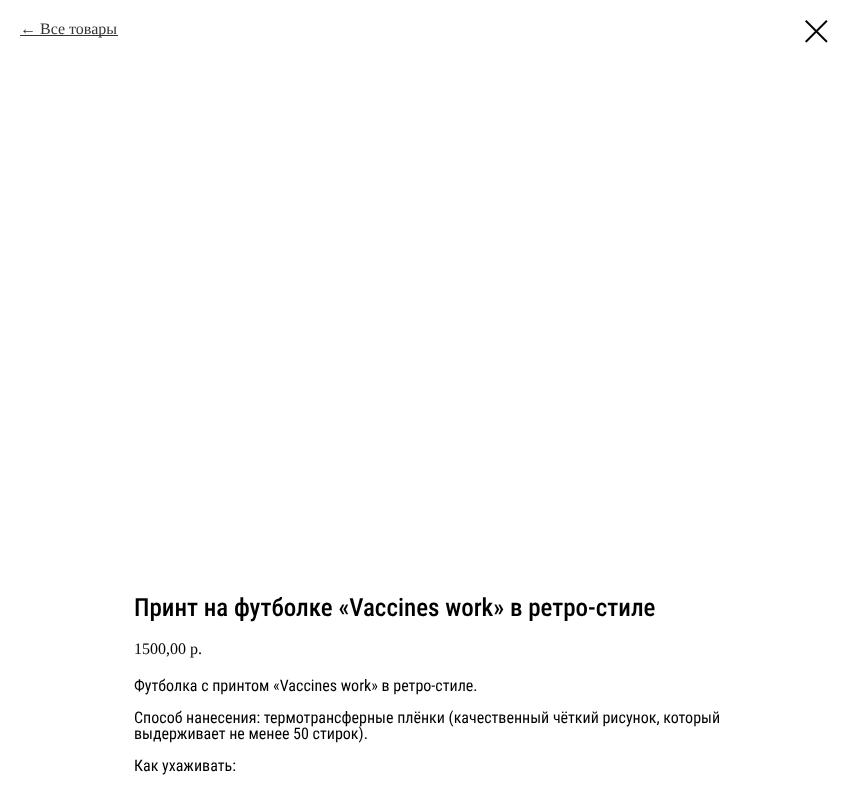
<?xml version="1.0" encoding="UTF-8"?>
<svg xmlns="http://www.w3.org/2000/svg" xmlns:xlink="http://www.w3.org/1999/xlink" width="848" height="791">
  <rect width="100%" height="100%" fill="#ffffff" />
  <rect x="20" y="35" width="98" height="1" fill="#333333" />
  <image x="805" y="20" width="23" height="23" xlink:href="image1.png" />
  <text x="20" y="34" style="font-family: Liberation Sans; font-size: 16px; fill: #333333">←</text>
  <text x="40" y="34" style="font-family: Liberation Serif; font-size: 16px; fill: #333333">Все товары</text>
  <text x="134" y="616" style="font-family: Roboto Condensed; font-size: 25px; font-weight: 500; fill: #000000">Принт на футболке «Vaccines work» в ретро-стиле</text>
  <text x="134" y="654" style="font-family: Liberation Serif; font-size: 16px; fill: #000000">1500,00</text>
  <text x="190" y="654" style="font-family: Liberation Serif; font-size: 16px; fill: #000000">р.</text>
  <text x="134" y="691" style="font-family: Roboto Condensed; font-size: 16px; fill: #000000">Футболка с принтом «Vaccines work» в ретро-стиле.</text>
  <text x="134" y="723" style="font-family: Roboto Condensed; font-size: 16px; fill: #000000">Способ нанесения: термотрансферные плёнки (качественный чёткий рисунок, который</text>
  <text x="134" y="739" style="font-family: Roboto Condensed; font-size: 16px; fill: #000000">выдерживает не менее 50 стирок).</text>
  <text x="134" y="771" style="font-family: Roboto Condensed; font-size: 16px; fill: #000000">Как ухаживать:</text>
</svg>
